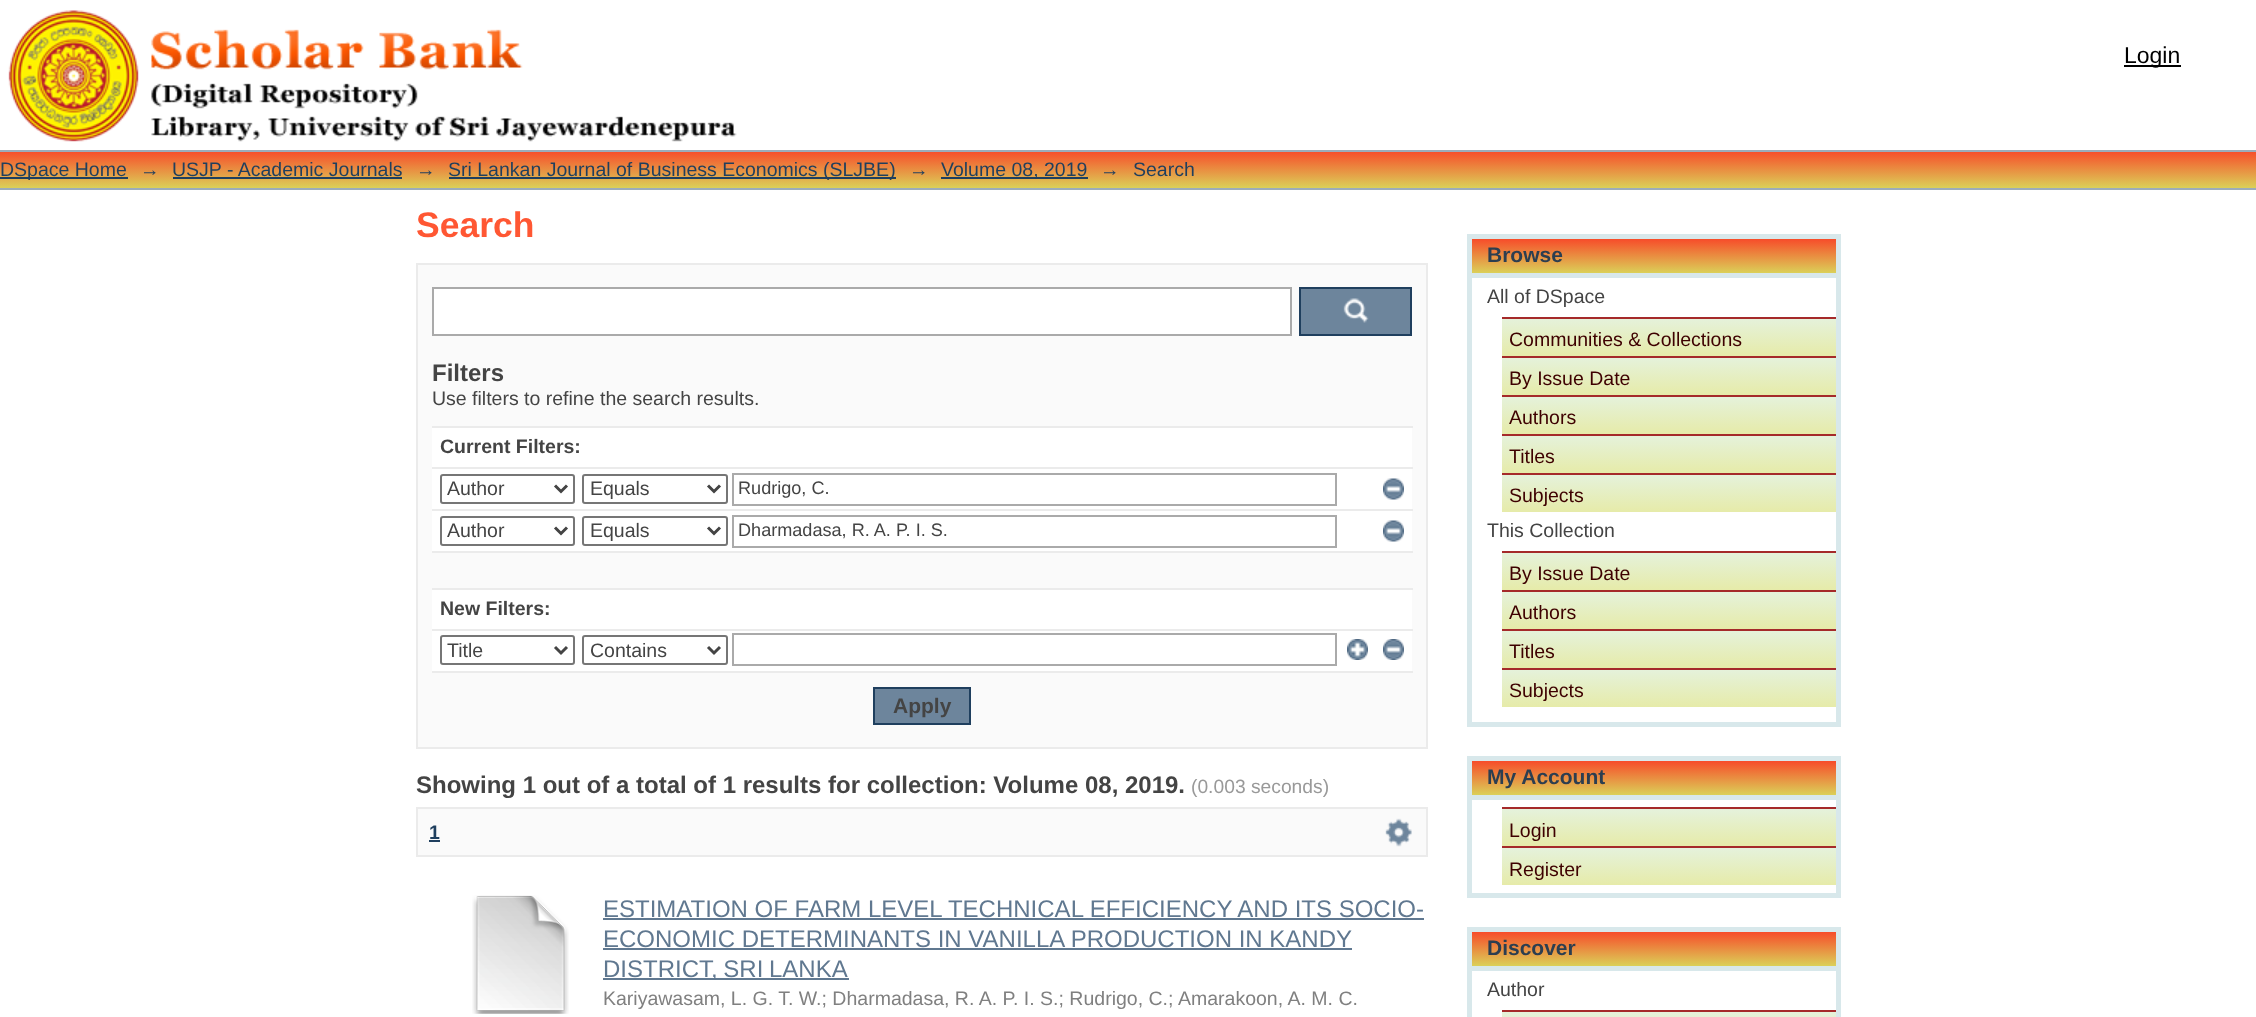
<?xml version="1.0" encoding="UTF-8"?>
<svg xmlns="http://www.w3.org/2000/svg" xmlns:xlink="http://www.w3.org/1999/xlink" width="2256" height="1017">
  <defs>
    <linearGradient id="g1" gradientUnits="userSpaceOnUse" x1="1128" y1="151" x2="1128" y2="188"><stop offset="0" stop-color="#f74c2a" /><stop offset="1" stop-color="#dbd058" /></linearGradient>
    <linearGradient id="g2" gradientUnits="userSpaceOnUse" x1="1654" y1="239" x2="1654" y2="273"><stop offset="0" stop-color="#f74c2a" /><stop offset="1" stop-color="#dbd058" /></linearGradient>
    <linearGradient id="g3" gradientUnits="userSpaceOnUse" x1="1669" y1="318" x2="1669" y2="356"><stop offset="0" stop-color="#e5f2dc" /><stop offset="1" stop-color="#e6eba9" /></linearGradient>
    <linearGradient id="g4" gradientUnits="userSpaceOnUse" x1="1669" y1="357" x2="1669" y2="395"><stop offset="0" stop-color="#e5f2dc" /><stop offset="1" stop-color="#e6eba9" /></linearGradient>
    <linearGradient id="g5" gradientUnits="userSpaceOnUse" x1="1669" y1="396" x2="1669" y2="434"><stop offset="0" stop-color="#e5f2dc" /><stop offset="1" stop-color="#e6eba9" /></linearGradient>
    <linearGradient id="g6" gradientUnits="userSpaceOnUse" x1="1669" y1="435" x2="1669" y2="473"><stop offset="0" stop-color="#e5f2dc" /><stop offset="1" stop-color="#e6eba9" /></linearGradient>
    <linearGradient id="g7" gradientUnits="userSpaceOnUse" x1="1669" y1="474" x2="1669" y2="512"><stop offset="0" stop-color="#e5f2dc" /><stop offset="1" stop-color="#e6eba9" /></linearGradient>
    <linearGradient id="g8" gradientUnits="userSpaceOnUse" x1="1669" y1="552" x2="1669" y2="590"><stop offset="0" stop-color="#e5f2dc" /><stop offset="1" stop-color="#e6eba9" /></linearGradient>
    <linearGradient id="g9" gradientUnits="userSpaceOnUse" x1="1669" y1="591" x2="1669" y2="629"><stop offset="0" stop-color="#e5f2dc" /><stop offset="1" stop-color="#e6eba9" /></linearGradient>
    <linearGradient id="g10" gradientUnits="userSpaceOnUse" x1="1669" y1="630" x2="1669" y2="668"><stop offset="0" stop-color="#e5f2dc" /><stop offset="1" stop-color="#e6eba9" /></linearGradient>
    <linearGradient id="g11" gradientUnits="userSpaceOnUse" x1="1669" y1="669" x2="1669" y2="707"><stop offset="0" stop-color="#e5f2dc" /><stop offset="1" stop-color="#e6eba9" /></linearGradient>
    <linearGradient id="g12" gradientUnits="userSpaceOnUse" x1="1654" y1="761" x2="1654" y2="795"><stop offset="0" stop-color="#f74c2a" /><stop offset="1" stop-color="#dbd058" /></linearGradient>
    <linearGradient id="g13" gradientUnits="userSpaceOnUse" x1="1669" y1="809" x2="1669" y2="846"><stop offset="0" stop-color="#e5f2dc" /><stop offset="1" stop-color="#e6eba9" /></linearGradient>
    <linearGradient id="g14" gradientUnits="userSpaceOnUse" x1="1669" y1="848" x2="1669" y2="885"><stop offset="0" stop-color="#e5f2dc" /><stop offset="1" stop-color="#e6eba9" /></linearGradient>
    <linearGradient id="g15" gradientUnits="userSpaceOnUse" x1="1654" y1="932" x2="1654" y2="966"><stop offset="0" stop-color="#f74c2a" /><stop offset="1" stop-color="#dbd058" /></linearGradient>
    <linearGradient id="g16" gradientUnits="userSpaceOnUse" x1="1669" y1="1011" x2="1669" y2="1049"><stop offset="0" stop-color="#e5f2dc" /><stop offset="1" stop-color="#e6eba9" /></linearGradient>
  </defs>
  <rect width="100%" height="100%" fill="#ffffff" />
  <image x="8" y="10" width="729" height="132" xlink:href="image1.png" />
  <rect x="2124" y="65" width="57" height="2" fill="#000000" />
  <rect y="152" width="2256" height="36" fill="url(#g1)" />
  <rect y="150" width="2256" height="2" fill="#9cacba" />
  <rect y="188" width="2256" height="2" fill="#9cacba" />
  <rect y="177" width="128" height="2" fill="#1f3f5e" />
  <rect x="173" y="177" width="229" height="2" fill="#1f3f5e" />
  <rect x="449" y="177" width="447" height="2" fill="#1f3f5e" />
  <rect x="941" y="177" width="147" height="2" fill="#1f3f5e" />
  <rect x="417" y="264" width="1010" height="484" fill="#fafafa" stroke="#ebebeb" stroke-width="2" />
  <rect x="433" y="288" width="858" height="47" fill="#ffffff" stroke="#aaaaaa" stroke-width="2" />
  <rect x="1301" y="289" width="109" height="45" fill="#6d859c" />
  <image x="1343" y="298" width="26" height="25" xlink:href="image2.png" />
  <rect x="1300" y="288" width="111" height="47" fill="none" stroke="#1f3f5e" stroke-width="2" />
  <rect x="432" y="428" width="980" height="243" fill="#ffffff" />
  <rect x="432" y="426" width="981" height="2" fill="#ebebeb" />
  <rect x="432" y="467" width="981" height="2" fill="#ebebeb" />
  <rect x="441" y="475" width="133" height="28" rx="2" fill="none" stroke="#767676" stroke-width="2" />
  <path d="M 555 485.5 l 6 6 l 6 -6" fill="none" stroke="#444444" stroke-width="3" />
  <rect x="583" y="475" width="144" height="28" rx="2" fill="none" stroke="#767676" stroke-width="2" />
  <path d="M 708 485.5 l 6 6 l 6 -6" fill="none" stroke="#444444" stroke-width="3" />
  <rect x="733" y="474" width="603" height="31" fill="none" stroke="#aaaaaa" stroke-width="2" />
  <image x="1383" y="478" width="21" height="22" xlink:href="image3.png" />
  <rect x="432" y="509" width="981" height="2" fill="#ebebeb" />
  <rect x="441" y="517" width="133" height="28" rx="2" fill="none" stroke="#767676" stroke-width="2" />
  <path d="M 555 527.5 l 6 6 l 6 -6" fill="none" stroke="#444444" stroke-width="3" />
  <rect x="583" y="517" width="144" height="28" rx="2" fill="none" stroke="#767676" stroke-width="2" />
  <path d="M 708 527.5 l 6 6 l 6 -6" fill="none" stroke="#444444" stroke-width="3" />
  <rect x="733" y="516" width="603" height="31" fill="none" stroke="#aaaaaa" stroke-width="2" />
  <image x="1383" y="520" width="21" height="22" xlink:href="image3.png" />
  <rect x="432" y="553" width="980" height="35" fill="#fafafa" />
  <rect x="432" y="551" width="981" height="2" fill="#ebebeb" />
  <rect x="432" y="588" width="981" height="2" fill="#ebebeb" />
  <rect x="432" y="629" width="981" height="2" fill="#ebebeb" />
  <rect x="441" y="636" width="133" height="28" rx="2" fill="none" stroke="#767676" stroke-width="2" />
  <path d="M 555 647 l 6 6 l 6 -6" fill="none" stroke="#444444" stroke-width="3" />
  <rect x="583" y="636" width="144" height="28" rx="2" fill="none" stroke="#767676" stroke-width="2" />
  <path d="M 708 647 l 6 6 l 6 -6" fill="none" stroke="#444444" stroke-width="3" />
  <rect x="733" y="634" width="603" height="31" fill="none" stroke="#aaaaaa" stroke-width="2" />
  <image x="1347" y="639" width="21" height="21" xlink:href="image4.png" />
  <image x="1383" y="639" width="21" height="21" xlink:href="image5.png" />
  <rect x="432" y="671" width="981" height="2" fill="#ebebeb" />
  <rect x="874" y="688" width="96" height="36" fill="#6d859c" stroke="#1f3f5e" stroke-width="2" />
  <rect x="417" y="808" width="1010" height="48" fill="#fafafa" stroke="#ebebeb" stroke-width="2" />
  <rect x="429" y="840" width="11" height="2" fill="#1f3f5e" />
  <image x="1385" y="818" width="27" height="29" xlink:href="image6.png" />
  <image x="472" y="895" width="97" height="119" xlink:href="image7.png" />
  <rect x="603" y="918" width="821" height="2" fill="#607890" />
  <rect x="603" y="948" width="749" height="2" fill="#607890" />
  <rect x="603" y="978" width="246" height="2" fill="#607890" />
  <rect x="1472" y="239" width="364" height="34" fill="url(#g2)" />
  <rect x="1469.5" y="236.5" width="369" height="39" fill="none" stroke="#d8e8eb" stroke-width="5" />
  <rect x="1836" y="278" width="5" height="448" fill="#d8e8eb" />
  <rect x="1467" y="722" width="374" height="5" fill="#d8e8eb" />
  <rect x="1467" y="278" width="5" height="448" fill="#d8e8eb" />
  <rect x="1502" y="319" width="334" height="37" fill="url(#g3)" />
  <rect x="1502" y="317" width="334" height="2" fill="#a52a2a" />
  <rect x="1502" y="358" width="334" height="37" fill="url(#g4)" />
  <rect x="1502" y="356" width="334" height="2" fill="#a52a2a" />
  <rect x="1502" y="397" width="334" height="37" fill="url(#g5)" />
  <rect x="1502" y="395" width="334" height="2" fill="#a52a2a" />
  <rect x="1502" y="436" width="334" height="37" fill="url(#g6)" />
  <rect x="1502" y="434" width="334" height="2" fill="#a52a2a" />
  <rect x="1502" y="475" width="334" height="37" fill="url(#g7)" />
  <rect x="1502" y="473" width="334" height="2" fill="#a52a2a" />
  <rect x="1502" y="553" width="334" height="37" fill="url(#g8)" />
  <rect x="1502" y="551" width="334" height="2" fill="#a52a2a" />
  <rect x="1502" y="592" width="334" height="37" fill="url(#g9)" />
  <rect x="1502" y="590" width="334" height="2" fill="#a52a2a" />
  <rect x="1502" y="631" width="334" height="37" fill="url(#g10)" />
  <rect x="1502" y="629" width="334" height="2" fill="#a52a2a" />
  <rect x="1502" y="670" width="334" height="37" fill="url(#g11)" />
  <rect x="1502" y="668" width="334" height="2" fill="#a52a2a" />
  <rect x="1472" y="761" width="364" height="34" fill="url(#g12)" />
  <rect x="1469.5" y="758.5" width="369" height="39" fill="none" stroke="#d8e8eb" stroke-width="5" />
  <rect x="1836" y="800" width="5" height="97" fill="#d8e8eb" />
  <rect x="1467" y="893" width="374" height="5" fill="#d8e8eb" />
  <rect x="1467" y="800" width="5" height="97" fill="#d8e8eb" />
  <rect x="1502" y="809" width="334" height="37" fill="url(#g13)" />
  <rect x="1502" y="807" width="334" height="2" fill="#a52a2a" />
  <rect x="1502" y="848" width="334" height="37" fill="url(#g14)" />
  <rect x="1502" y="846" width="334" height="2" fill="#a52a2a" />
  <rect x="1472" y="932" width="364" height="34" fill="url(#g15)" />
  <rect x="1469.5" y="929.5" width="369" height="39" fill="none" stroke="#d8e8eb" stroke-width="5" />
  <rect x="1836" y="971" width="5" height="46" fill="#d8e8eb" />
  <rect x="1467" y="971" width="5" height="46" fill="#d8e8eb" />
  <rect x="1502" y="1012" width="334" height="5" fill="url(#g16)" />
  <rect x="1502" y="1010" width="334" height="2" fill="#a52a2a" />
  <text x="2124" y="63" style="font-family: Liberation Sans; font-size: 23px; fill: #000000">Login</text>
  <text x="0" y="176" style="font-family: Liberation Sans; font-size: 19.5px; fill: #1f3f5e">DSpace Home</text>
  <text x="140" y="176" style="font-family: Liberation Sans; font-size: 19.5px; fill: #1f3f5e">→</text>
  <text x="172" y="176" style="font-family: Liberation Sans; font-size: 19.5px; fill: #1f3f5e">USJP - Academic Journals</text>
  <text x="416" y="176" style="font-family: Liberation Sans; font-size: 19.5px; fill: #1f3f5e">→</text>
  <text x="448" y="176" style="font-family: Liberation Sans; font-size: 19.5px; fill: #1f3f5e">Sri Lankan Journal of Business Economics (SLJBE)</text>
  <text x="909" y="176" style="font-family: Liberation Sans; font-size: 19.5px; fill: #1f3f5e">→</text>
  <text x="941" y="176" style="font-family: Liberation Sans; font-size: 19.5px; fill: #1f3f5e">Volume 08, 2019</text>
  <text x="1100" y="176" style="font-family: Liberation Sans; font-size: 19.5px; fill: #1f3f5e">→</text>
  <text x="1133" y="176" style="font-family: Liberation Sans; font-size: 19.5px; fill: #1f3f5e">Search</text>
  <text x="416" y="237" style="font-family: Liberation Sans; font-size: 35.5px; font-weight: bold; fill: #ff5733">Search</text>
  <text x="432" y="381" style="font-family: Liberation Sans; font-size: 24px; font-weight: bold; fill: #444444">Filters</text>
  <text x="432" y="405" style="font-family: Liberation Sans; font-size: 19.5px; fill: #444444">Use filters to refine the search results.</text>
  <text x="440" y="453" style="font-family: Liberation Sans; font-size: 19.5px; font-weight: bold; fill: #444444">Current Filters:</text>
  <text x="447" y="495" style="font-family: Liberation Sans; font-size: 19.5px; fill: #444444">Author</text>
  <text x="590" y="495" style="font-family: Liberation Sans; font-size: 19.5px; fill: #444444">Equals</text>
  <text x="738" y="494" style="font-family: Liberation Sans; font-size: 18.1px; fill: #444444">Rudrigo, C.</text>
  <text x="447" y="537" style="font-family: Liberation Sans; font-size: 19.5px; fill: #444444">Author</text>
  <text x="590" y="537" style="font-family: Liberation Sans; font-size: 19.5px; fill: #444444">Equals</text>
  <text x="738" y="536" style="font-family: Liberation Sans; font-size: 18.1px; fill: #444444">Dharmadasa, R. A. P. I. S.</text>
  <text x="440" y="615" style="font-family: Liberation Sans; font-size: 19.5px; font-weight: bold; fill: #444444">New Filters:</text>
  <text x="447" y="657" style="font-family: Liberation Sans; font-size: 19.5px; fill: #444444">Title</text>
  <text x="590" y="657" style="font-family: Liberation Sans; font-size: 19.5px; fill: #444444">Contains</text>
  <text x="893" y="713" style="font-family: Liberation Sans; font-size: 21px; font-weight: bold; fill: #444444">Apply</text>
  <text x="416" y="793" style="font-family: Liberation Sans; font-size: 24px; font-weight: bold; fill: #444444">Showing 1 out of a total of 1 results for collection: Volume 08, 2019.</text>
  <text x="1191" y="793" style="font-family: Liberation Sans; font-size: 19.25px; fill: #999999">(0.003 seconds)</text>
  <text x="429" y="839" style="font-family: Liberation Sans; font-size: 19.5px; font-weight: bold; fill: #1f3f5e">1</text>
  <text x="603" y="917" style="font-family: Liberation Sans; font-size: 24px; fill: #607890">ESTIMATION OF FARM LEVEL TECHNICAL EFFICIENCY AND ITS SOCIO-</text>
  <text x="603" y="947" style="font-family: Liberation Sans; font-size: 24px; fill: #607890">ECONOMIC DETERMINANTS IN VANILLA PRODUCTION IN KANDY</text>
  <text x="603" y="977" word-spacing="-1" style="font-family: Liberation Sans; font-size: 24px; fill: #607890">DISTRICT, SRI LANKA</text>
  <text x="603" y="1005" style="font-family: Liberation Sans; font-size: 19.5px; fill: #808080">Kariyawasam, L. G. T. W.; Dharmadasa, R. A. P. I. S.; Rudrigo, C.;</text>
  <text x="1178" y="1005" style="font-family: Liberation Sans; font-size: 19.5px; fill: #808080">Amarakoon, A. M. C.</text>
  <text x="1487" y="262" style="font-family: Liberation Sans; font-size: 21px; font-weight: bold; fill: #2c3e50">Browse</text>
  <text x="1487" y="303" style="font-family: Liberation Sans; font-size: 19.5px; fill: #444444">All of DSpace</text>
  <text x="1509" y="346" style="font-family: Liberation Sans; font-size: 19.5px; fill: #3e0000">Communities &amp; Collections</text>
  <text x="1509" y="385" style="font-family: Liberation Sans; font-size: 19.5px; fill: #3e0000">By Issue Date</text>
  <text x="1509" y="424" style="font-family: Liberation Sans; font-size: 19.5px; fill: #3e0000">Authors</text>
  <text x="1509" y="463" style="font-family: Liberation Sans; font-size: 19.5px; fill: #3e0000">Titles</text>
  <text x="1509" y="502" style="font-family: Liberation Sans; font-size: 19.5px; fill: #3e0000">Subjects</text>
  <text x="1487" y="537" style="font-family: Liberation Sans; font-size: 19.5px; fill: #444444">This Collection</text>
  <text x="1509" y="580" style="font-family: Liberation Sans; font-size: 19.5px; fill: #3e0000">By Issue Date</text>
  <text x="1509" y="619" style="font-family: Liberation Sans; font-size: 19.5px; fill: #3e0000">Authors</text>
  <text x="1509" y="658" style="font-family: Liberation Sans; font-size: 19.5px; fill: #3e0000">Titles</text>
  <text x="1509" y="697" style="font-family: Liberation Sans; font-size: 19.5px; fill: #3e0000">Subjects</text>
  <text x="1487" y="784" style="font-family: Liberation Sans; font-size: 21px; font-weight: bold; fill: #2c3e50">My Account</text>
  <text x="1509" y="837" style="font-family: Liberation Sans; font-size: 19.5px; fill: #3e0000">Login</text>
  <text x="1509" y="876" style="font-family: Liberation Sans; font-size: 19.5px; fill: #3e0000">Register</text>
  <text x="1487" y="955" style="font-family: Liberation Sans; font-size: 21px; font-weight: bold; fill: #2c3e50">Discover</text>
  <text x="1487" y="996" style="font-family: Liberation Sans; font-size: 19.5px; fill: #444444">Author</text>
</svg>
